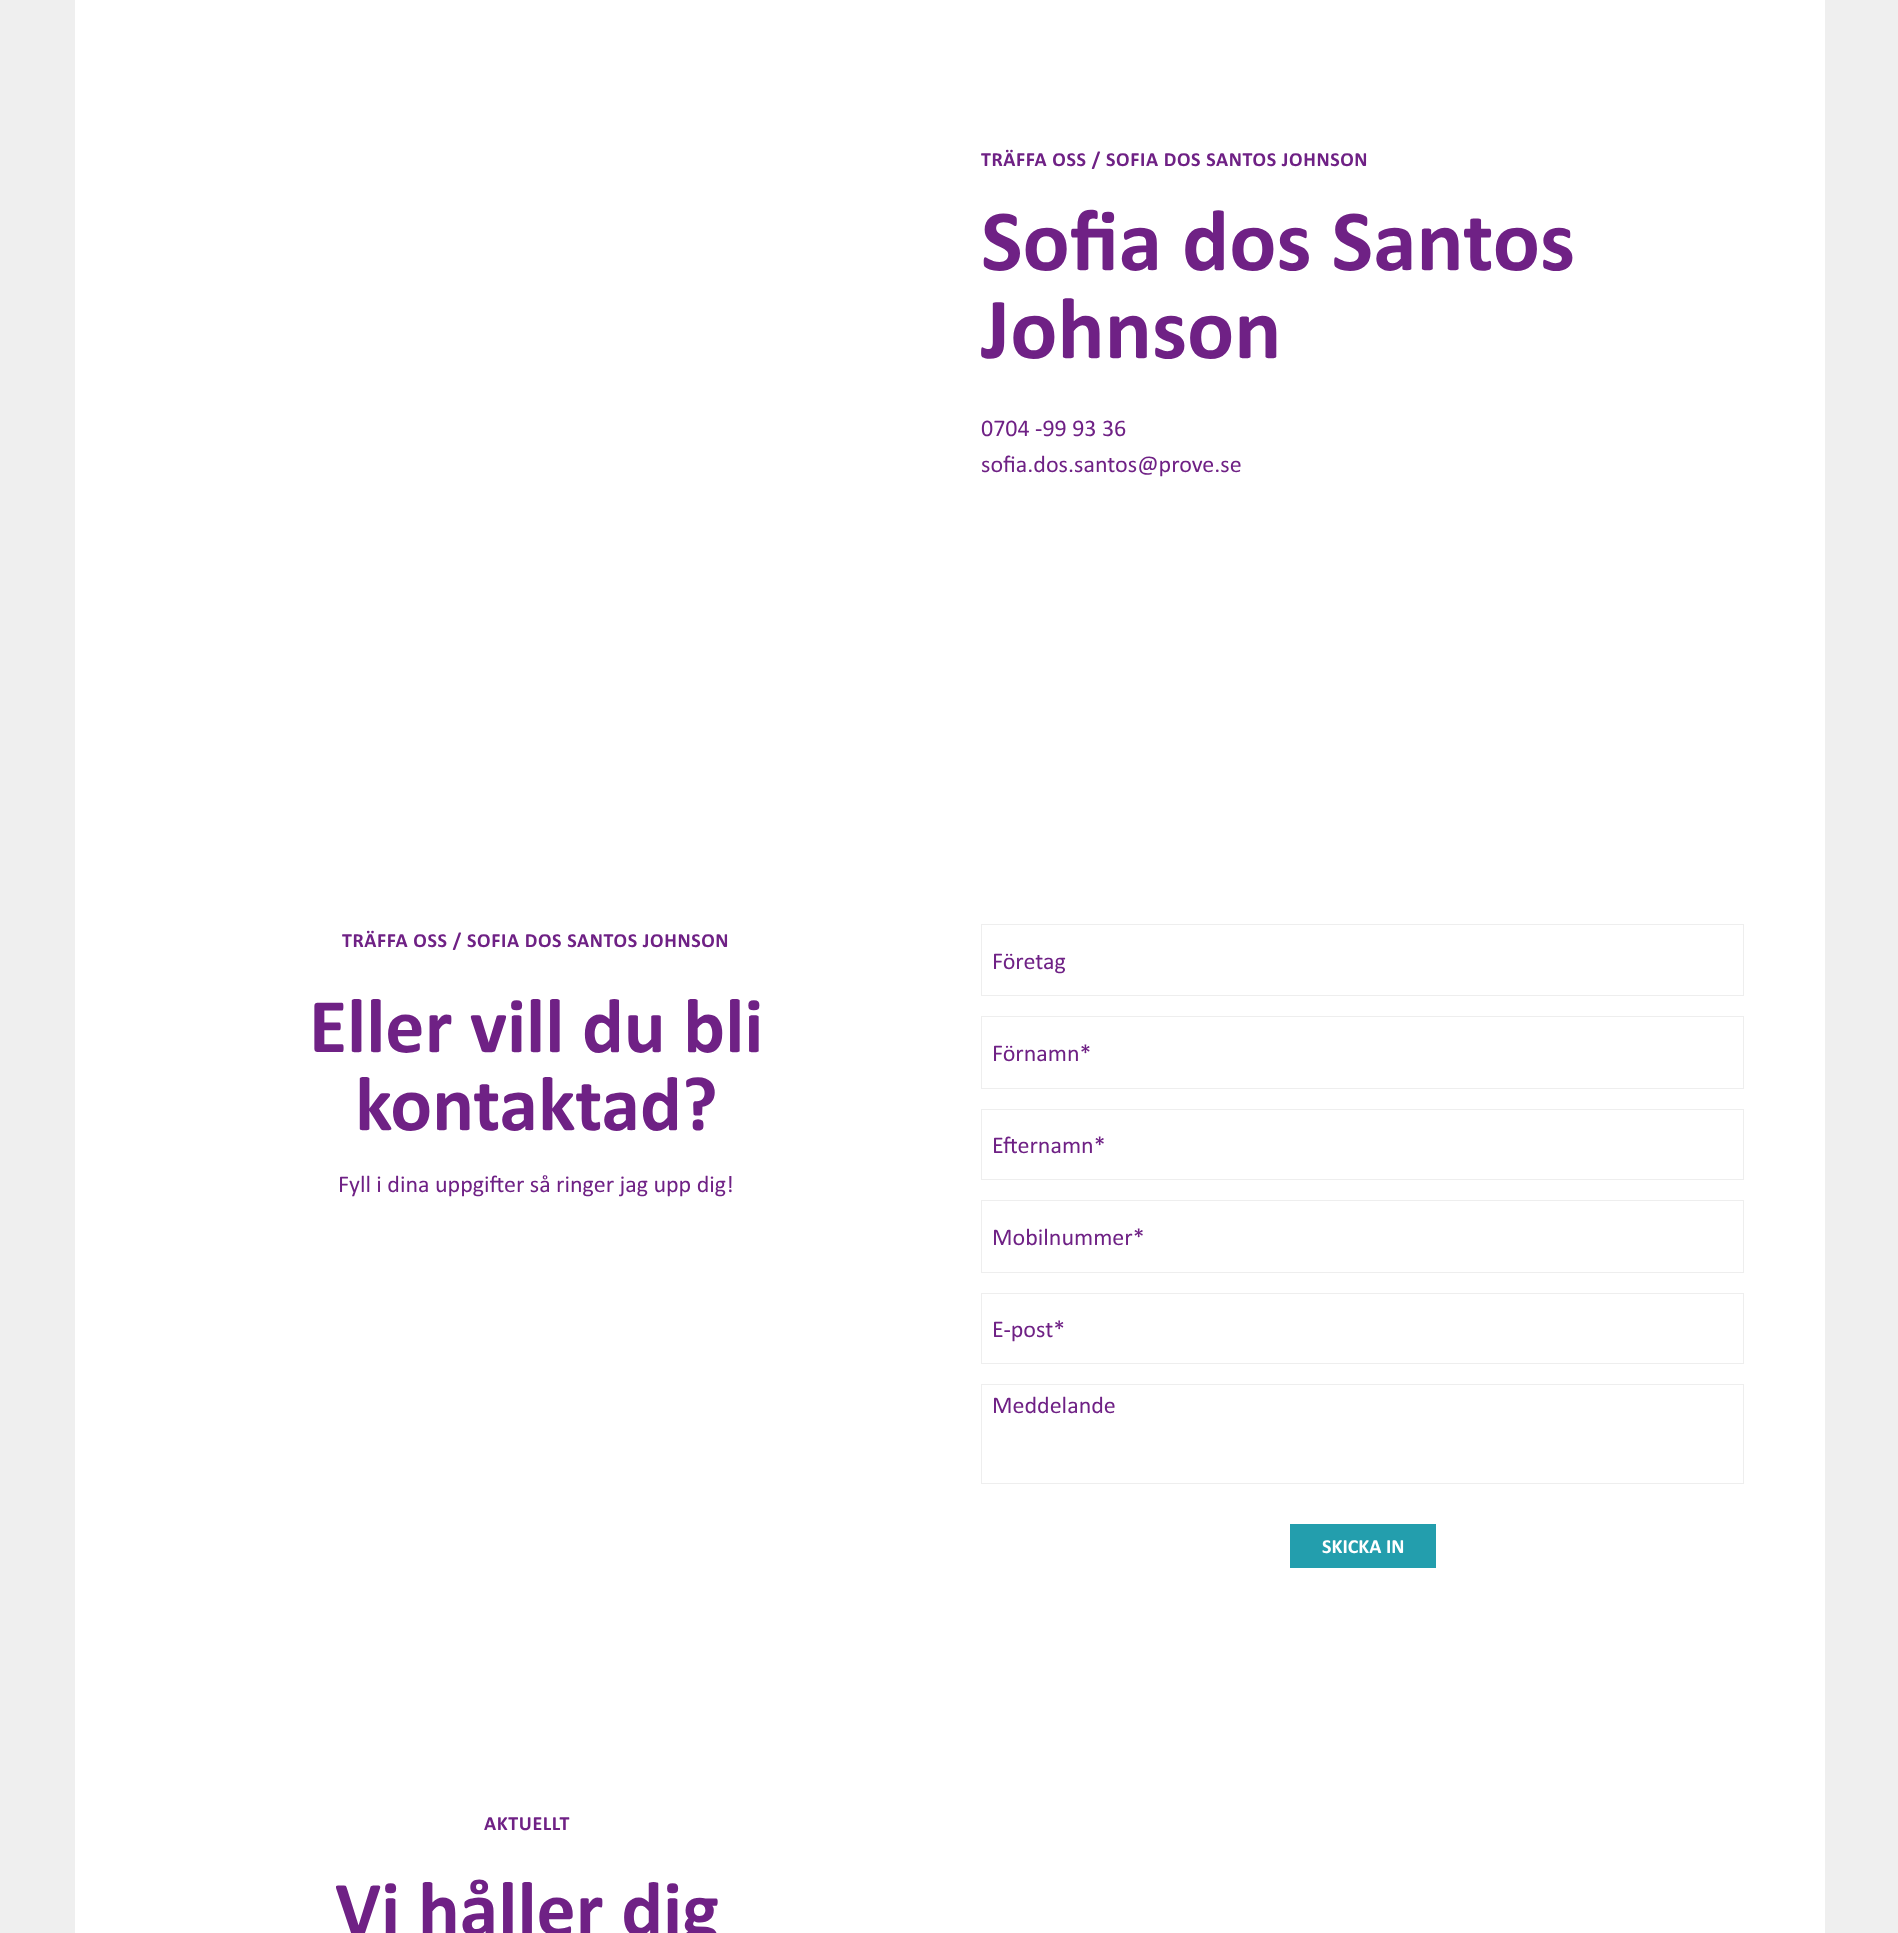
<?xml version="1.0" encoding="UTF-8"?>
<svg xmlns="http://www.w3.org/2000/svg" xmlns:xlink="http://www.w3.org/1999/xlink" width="1898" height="1933">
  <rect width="100%" height="100%" fill="#efefef" />
  <rect x="75" width="1750" height="1933" fill="#ffffff" />
  <rect x="981.5" y="924.5" width="762" height="71" fill="none" stroke="#eeeeee" />
  <rect x="981.5" y="1016.5" width="762" height="72" fill="none" stroke="#eeeeee" />
  <rect x="981.5" y="1109.5" width="762" height="70" fill="none" stroke="#eeeeee" />
  <rect x="981.5" y="1200.5" width="762" height="72" fill="none" stroke="#eeeeee" />
  <rect x="981.5" y="1293.5" width="762" height="70" fill="none" stroke="#eeeeee" />
  <rect x="981.5" y="1384.5" width="762" height="99" fill="none" stroke="#eeeeee" />
  <rect x="1290" y="1524" width="146" height="44" fill="#239ead" />
  <text x="981" y="166" style="font-family: Calibri; font-size: 20px; font-weight: bold; letter-spacing: 0.6px; fill: #6f2185">TRÄFFA OSS / SOFIA DOS SANTOS JOHNSON</text>
  <text x="981" y="270" style="font-family: Calibri; font-size: 88px; font-weight: bold; fill: #6f2185">Sofia dos Santos</text>
  <text x="981" y="358" style="font-family: Calibri; font-size: 88px; font-weight: bold; fill: #6f2185">Johnson</text>
  <text x="981" y="436" style="font-family: Calibri; font-size: 24px; fill: #6f2185">0704 -99 93 36</text>
  <text x="981" y="472" style="font-family: Calibri; font-size: 24px; fill: #6f2185">sofia.dos.santos@prove.se</text>
  <text x="342" y="947" style="font-family: Calibri; font-size: 20px; font-weight: bold; letter-spacing: 0.6px; fill: #6f2185">TRÄFFA OSS / SOFIA DOS SANTOS JOHNSON</text>
  <text x="309" y="1052" style="font-family: Calibri; font-size: 78px; font-weight: bold; fill: #6f2185">Eller vill du bli</text>
  <text x="355" y="1130" style="font-family: Calibri; font-size: 78px; font-weight: bold; fill: #6f2185">kontaktad?</text>
  <text x="338" y="1192" style="font-family: Calibri; font-size: 24px; fill: #6f2185">Fyll i dina uppgifter så ringer jag upp dig!</text>
  <text x="992" y="969" style="font-family: Calibri; font-size: 24px; fill: #6f2185">Företag</text>
  <text x="992" y="1061" style="font-family: Calibri; font-size: 24px; fill: #6f2185">Förnamn*</text>
  <text x="992" y="1153" style="font-family: Calibri; font-size: 24px; fill: #6f2185">Efternamn*</text>
  <text x="992" y="1245" style="font-family: Calibri; font-size: 24px; fill: #6f2185">Mobilnummer*</text>
  <text x="992" y="1337" style="font-family: Calibri; font-size: 24px; fill: #6f2185">E-post*</text>
  <text x="992" y="1413" style="font-family: Calibri; font-size: 24px; fill: #6f2185">Meddelande</text>
  <text x="1322" y="1553" style="font-family: Calibri; font-size: 20px; font-weight: bold; fill: #ffffff">SKICKA IN</text>
  <text x="484" y="1830" style="font-family: Calibri; font-size: 20px; font-weight: bold; letter-spacing: 0.6px; fill: #6f2185">AKTUELLT</text>
  <text x="335" y="1935" style="font-family: Calibri; font-size: 78px; font-weight: bold; fill: #6f2185">Vi håller dig</text>
</svg>
